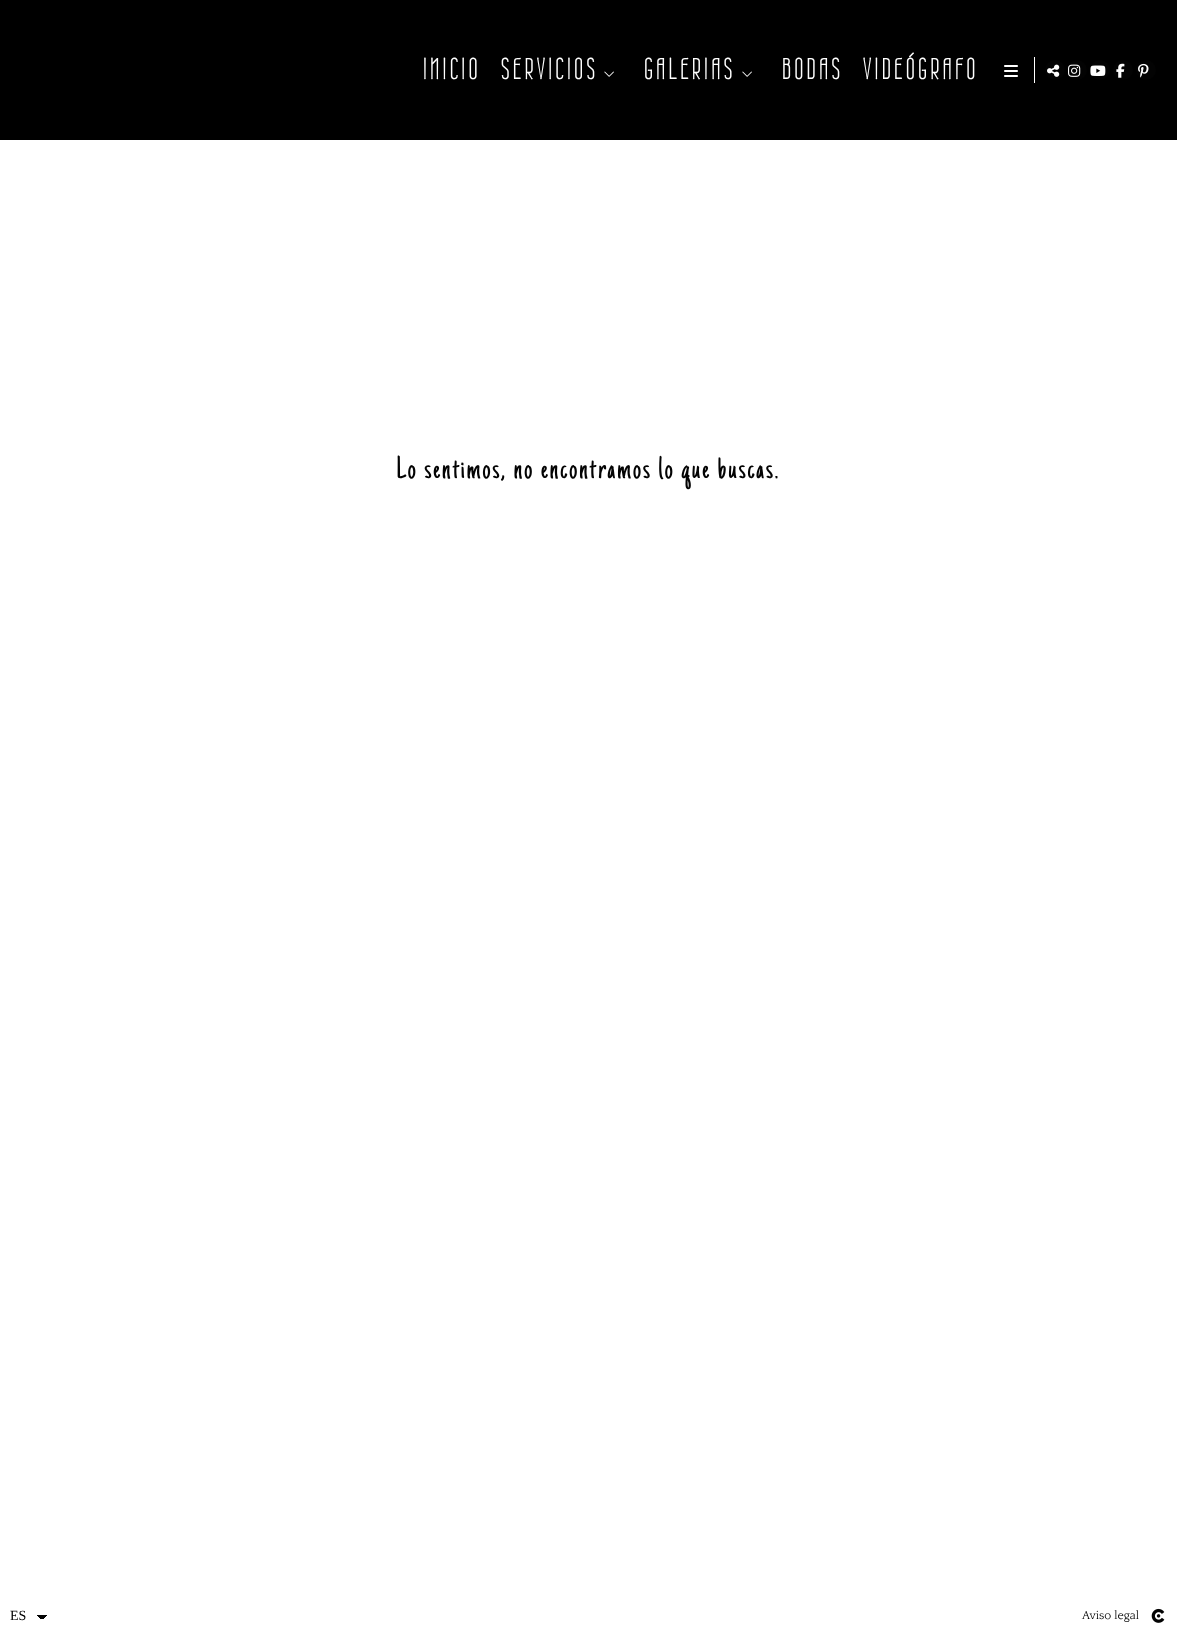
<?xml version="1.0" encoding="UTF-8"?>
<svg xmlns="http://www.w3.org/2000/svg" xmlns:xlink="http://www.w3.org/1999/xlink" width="1177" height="1631">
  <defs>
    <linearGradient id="g1" gradientUnits="userSpaceOnUse" x1="42" y1="1615" x2="47" y2="1620"><stop offset="0.5" stop-color="#030303" /><stop offset="0.5" stop-color="#ffffff" /></linearGradient>
    <linearGradient id="g2" gradientUnits="userSpaceOnUse" x1="37" y1="1620" x2="42" y2="1615"><stop offset="0.5" stop-color="#ffffff" /><stop offset="0.5" stop-color="#030303" /></linearGradient>
  </defs>
  <rect width="100%" height="100%" fill="#ffffff" />
  <rect width="1177" height="140" fill="#000000" />
  <image x="604" y="71" width="10" height="6" xlink:href="image1.png" />
  <image x="742" y="71" width="10" height="6" xlink:href="image1.png" />
  <image x="1004" y="65" width="14" height="12" xlink:href="image2.png" />
  <rect x="1034" y="57" width="1" height="26" fill="#ffffff" />
  <circle cx="1055" cy="70" r="10" fill="#030303" />
  <image x="1047" y="64" width="13" height="13" xlink:href="image3.png" />
  <circle cx="1077" cy="70" r="10" fill="#030303" />
  <image x="1068" y="64" width="13" height="13" xlink:href="image4.png" />
  <circle cx="1100" cy="70" r="10" fill="#030303" />
  <image x="1090" y="65" width="16" height="11" xlink:href="image5.png" />
  <circle cx="1123" cy="70" r="10" fill="#030303" />
  <image x="1116" y="63" width="9" height="15" xlink:href="image6.png" />
  <circle cx="1146" cy="70" r="10" fill="#030303" />
  <image x="1138" y="63" width="11" height="15" xlink:href="image7.png" />
  <rect x="42" y="1615" width="5" height="4" fill="url(#g1)" />
  <rect x="37" y="1615" width="5" height="4" fill="url(#g2)" />
  <image x="1151" y="1608" width="14" height="15" xlink:href="image8.png" />
  <text x="423" y="79" style="font-family: Wire One; font-size: 29px; font-weight: bold; letter-spacing: 4px; fill: #ffffff">INICIO</text>
  <text x="501" y="79" style="font-family: Wire One; font-size: 29px; font-weight: bold; letter-spacing: 4px; fill: #ffffff">SERVICIOS</text>
  <text x="644" y="79" style="font-family: Wire One; font-size: 29px; font-weight: bold; letter-spacing: 4px; fill: #ffffff">GALERIAS</text>
  <text x="782" y="79" style="font-family: Wire One; font-size: 29px; font-weight: bold; letter-spacing: 4px; fill: #ffffff">BODAS</text>
  <text x="863" y="79" style="font-family: Wire One; font-size: 29px; font-weight: bold; letter-spacing: 4px; fill: #ffffff">VIDEÓGRAFO</text>
  <text x="396" y="478" style="font-family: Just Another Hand; font-size: 32.25px; letter-spacing: 2px; fill: #030303">Lo sentimos, no encontramos lo que buscas.</text>
  <text x="10" y="1620" style="font-family: Liberation Serif; font-size: 14px; fill: #030303">ES</text>
  <text x="1082" y="1619" style="font-family: Quattrocento; font-size: 12px; fill: #030303">Aviso legal</text>
</svg>
